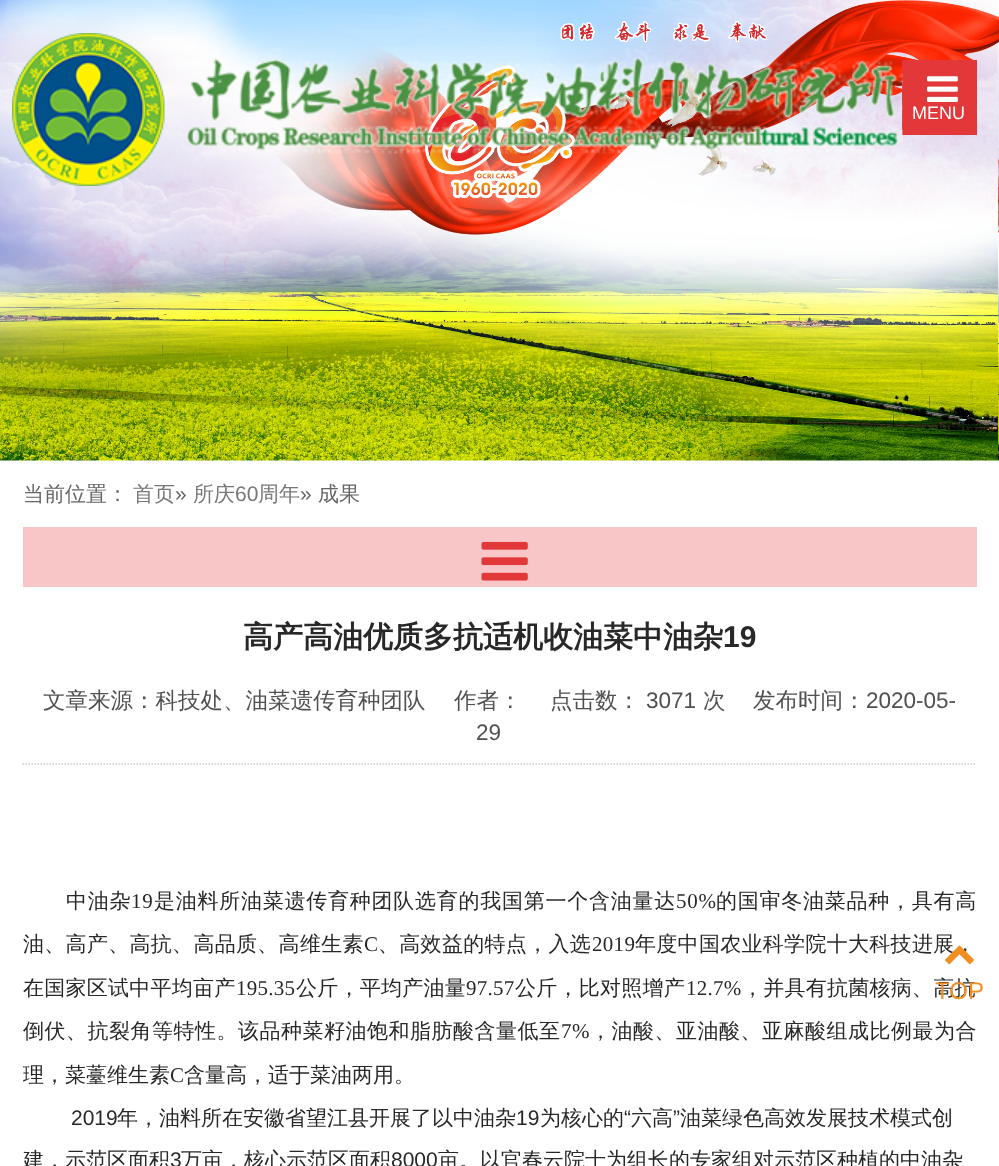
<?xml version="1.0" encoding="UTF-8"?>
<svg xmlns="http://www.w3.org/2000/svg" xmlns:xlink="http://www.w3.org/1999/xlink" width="999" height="1166">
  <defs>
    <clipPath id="clip1"><rect x="23" y="587" width="954" height="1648" /></clipPath>
  </defs>
  <rect width="100%" height="100%" fill="#ffffff" />
  <image x="0" y="0" width="999" height="461" xlink:href="image1.png" />
  <rect x="902" y="60" width="75" height="75" fill="#e23839" />
  <image x="12" y="33" width="891" height="153" xlink:href="image2.png" />
  <image x="927" y="76" width="31" height="26" xlink:href="image3.png" />
  <rect x="23" y="527" width="954" height="60" fill="#f9c6c7" />
  <image x="481" y="541" width="47" height="40" xlink:href="image4.png" />
  <path d="M 22.5 764 h 954" fill="none" stroke="#cccccc" stroke-width="1.5" stroke-dasharray="1.5 1.5" />
  <text x="912" y="119" style="font-family: Liberation Sans; font-size: 18px; fill: #ffffff">MENU</text>
  <text x="23" y="501" style="font-family: WenQuanYi Zen Hei; font-size: 21px; font-weight: 500; fill: #656565">当前位置：</text>
  <text x="133" y="501" style="font-family: WenQuanYi Zen Hei; font-size: 21px; font-weight: 500; fill: #787878">首页</text>
  <text x="175" y="501" style="font-family: Liberation Sans; font-size: 21px; fill: #656565">»</text>
  <text x="193" y="501" style="font-family: WenQuanYi Zen Hei; font-size: 21px; font-weight: 500; fill: #787878">所庆</text>
  <text x="235" y="501" style="font-family: Liberation Sans; font-size: 21px; fill: #787878">60</text>
  <text x="258" y="501" style="font-family: WenQuanYi Zen Hei; font-size: 21px; font-weight: 500; fill: #787878">周年</text>
  <text x="300" y="501" style="font-family: Liberation Sans; font-size: 21px; fill: #656565">»</text>
  <text x="318" y="501" style="font-family: WenQuanYi Zen Hei; font-size: 21px; font-weight: 500; fill: #656565">成果</text>
  <text x="243" y="647" style="font-family: WenQuanYi Zen Hei; font-size: 30px; font-weight: bold; fill: #282828">高产高油优质多抗适机收油菜中油杂</text>
  <text x="723" y="647" style="font-family: Liberation Sans; font-size: 30px; font-weight: bold; fill: #282828">19</text>
  <text x="43" y="708" style="font-family: WenQuanYi Zen Hei; font-size: 22.5px; font-weight: 500; fill: #505050">文章来源：科技处、油菜遗传育种团队</text>
  <text x="454" y="708" style="font-family: WenQuanYi Zen Hei; font-size: 22.5px; font-weight: 500; fill: #505050">作者：</text>
  <text x="550" y="708" style="font-family: WenQuanYi Zen Hei; font-size: 22.5px; font-weight: 500; fill: #505050">点击数：</text>
  <text x="646" y="708" style="font-family: Liberation Sans; font-size: 22.5px; fill: #505050">3071</text>
  <text x="703" y="708" style="font-family: WenQuanYi Zen Hei; font-size: 22.5px; font-weight: 500; fill: #505050">次</text>
  <text x="753" y="708" style="font-family: WenQuanYi Zen Hei; font-size: 22.5px; font-weight: 500; fill: #505050">发布时间：</text>
  <text x="866" y="708" style="font-family: Liberation Sans; font-size: 22.5px; fill: #505050">2020-05-</text>
  <text x="476" y="740" style="font-family: Liberation Sans; font-size: 22.5px; fill: #505050">29</text>
  <text x="66" y="908" style="font-family: WenQuanYi Zen Hei; font-size: 21px; font-weight: 500; letter-spacing: 0.75px; fill: #282828">中油杂</text>
  <text x="131" y="908" style="font-family: Liberation Serif; font-size: 21px; letter-spacing: 0.75px; fill: #282828">19</text>
  <text x="154" y="908" style="font-family: WenQuanYi Zen Hei; font-size: 21px; font-weight: 500; letter-spacing: 0.75px; fill: #282828">是油料所油菜遗传育种团队选育的我国第一个含油量达</text>
  <text x="676" y="908" style="font-family: Liberation Serif; font-size: 21px; letter-spacing: 0.75px; fill: #282828">50%</text>
  <text x="716" y="908" style="font-family: WenQuanYi Zen Hei; font-size: 21px; font-weight: 500; letter-spacing: 0.75px; fill: #282828">的国审冬油菜品种，具有高</text>
  <text x="23" y="951" style="font-family: WenQuanYi Zen Hei; font-size: 21px; font-weight: 500; letter-spacing: 0.3px; fill: #282828">油、高产、高抗、高品质、高维生素</text>
  <text x="364" y="951" style="font-family: Liberation Serif; font-size: 21px; letter-spacing: 0.3px; fill: #282828">C</text>
  <text x="378" y="951" style="font-family: WenQuanYi Zen Hei; font-size: 21px; font-weight: 500; letter-spacing: 0.3px; fill: #282828">、高效益的特点，入选</text>
  <text x="592" y="951" style="font-family: Liberation Serif; font-size: 21px; letter-spacing: 0.3px; fill: #282828">2019</text>
  <text x="635" y="951" style="font-family: WenQuanYi Zen Hei; font-size: 21px; font-weight: 500; letter-spacing: 0.3px; fill: #282828">年度中国农业科学院十大科技进展，</text>
  <text x="23" y="995" style="font-family: WenQuanYi Zen Hei; font-size: 21px; font-weight: 500; letter-spacing: 0.25px; fill: #282828">在国家区试中平均亩产</text>
  <text x="236" y="995" style="font-family: Liberation Serif; font-size: 21px; letter-spacing: 0.25px; fill: #282828">195.35</text>
  <text x="296" y="995" style="font-family: WenQuanYi Zen Hei; font-size: 21px; font-weight: 500; letter-spacing: 0.25px; fill: #282828">公斤，平均产油量</text>
  <text x="466" y="995" style="font-family: Liberation Serif; font-size: 21px; letter-spacing: 0.25px; fill: #282828">97.57</text>
  <text x="515" y="995" style="font-family: WenQuanYi Zen Hei; font-size: 21px; font-weight: 500; letter-spacing: 0.25px; fill: #282828">公斤，比对照增产</text>
  <text x="686" y="995" style="font-family: Liberation Serif; font-size: 21px; letter-spacing: 0.25px; fill: #282828">12.7%</text>
  <text x="742" y="995" style="font-family: WenQuanYi Zen Hei; font-size: 21px; font-weight: 500; letter-spacing: 0.25px; fill: #282828">，并具有抗菌核病、高抗</text>
  <text x="23" y="1038" style="font-family: WenQuanYi Zen Hei; font-size: 21px; font-weight: 500; letter-spacing: 0.5px; fill: #282828">倒伏、抗裂角等特性。该品种菜籽油饱和脂肪酸含量低至</text>
  <text x="561" y="1038" style="font-family: Liberation Serif; font-size: 21px; letter-spacing: 0.5px; fill: #282828">7%</text>
  <text x="590" y="1038" style="font-family: WenQuanYi Zen Hei; font-size: 21px; font-weight: 500; letter-spacing: 0.5px; fill: #282828">，油酸、亚油酸、亚麻酸组成比例最为合</text>
  <g clip-path="url(#clip1)">
    <text x="23" y="1082" style="font-family: WenQuanYi Zen Hei; font-size: 21px; font-weight: 500; fill: #282828">理，菜薹维生素</text>
  </g>
  <text x="170" y="1082" style="font-family: Liberation Serif; font-size: 21px; fill: #282828">C</text>
  <text x="184" y="1082" style="font-family: WenQuanYi Zen Hei; font-size: 21px; font-weight: 500; fill: #282828">含量高，适于菜油两用。</text>
  <text x="71" y="1125" style="font-family: Liberation Sans; font-size: 21px; fill: #282828">2019</text>
  <text x="117" y="1125" style="font-family: WenQuanYi Zen Hei; font-size: 21px; font-weight: 500; fill: #282828">年，油料所在安徽省望江县开展了以中油杂</text>
  <text x="516" y="1125" style="font-family: Liberation Sans; font-size: 21px; fill: #282828">19</text>
  <text x="540" y="1125" style="font-family: WenQuanYi Zen Hei; font-size: 21px; font-weight: 500; fill: #282828">为核心的</text>
  <text x="624" y="1125" style="font-family: Liberation Sans; font-size: 21px; fill: #282828">“</text>
  <text x="631" y="1125" style="font-family: WenQuanYi Zen Hei; font-size: 21px; font-weight: 500; fill: #282828">六高</text>
  <text x="673" y="1125" style="font-family: Liberation Sans; font-size: 21px; fill: #282828">”</text>
  <text x="680" y="1125" style="font-family: WenQuanYi Zen Hei; font-size: 21px; font-weight: 500; fill: #282828">油菜绿色高效发展技术模式创</text>
  <text x="23" y="1167" style="font-family: WenQuanYi Zen Hei; font-size: 21px; font-weight: 500; fill: #282828">建，示范区面积</text>
  <text x="170" y="1167" style="font-family: Liberation Sans; font-size: 21px; fill: #282828">3</text>
  <text x="181" y="1167" style="font-family: WenQuanYi Zen Hei; font-size: 21px; font-weight: 500; fill: #282828">万亩，核心示范区面积</text>
  <text x="391" y="1167" style="font-family: Liberation Sans; font-size: 21px; fill: #282828">8000</text>
  <text x="438" y="1167" style="font-family: WenQuanYi Zen Hei; font-size: 21px; font-weight: 500; fill: #282828">亩。以官春云院士为组长的专家组对示范区种植的中油杂</text>
  <image x="945" y="945" width="29" height="20" xlink:href="image5.png" />
  <text x="935" y="999" style="font-family: Liberation Sans; font-size: 24px; fill: #f18e21">TOP</text>
</svg>
